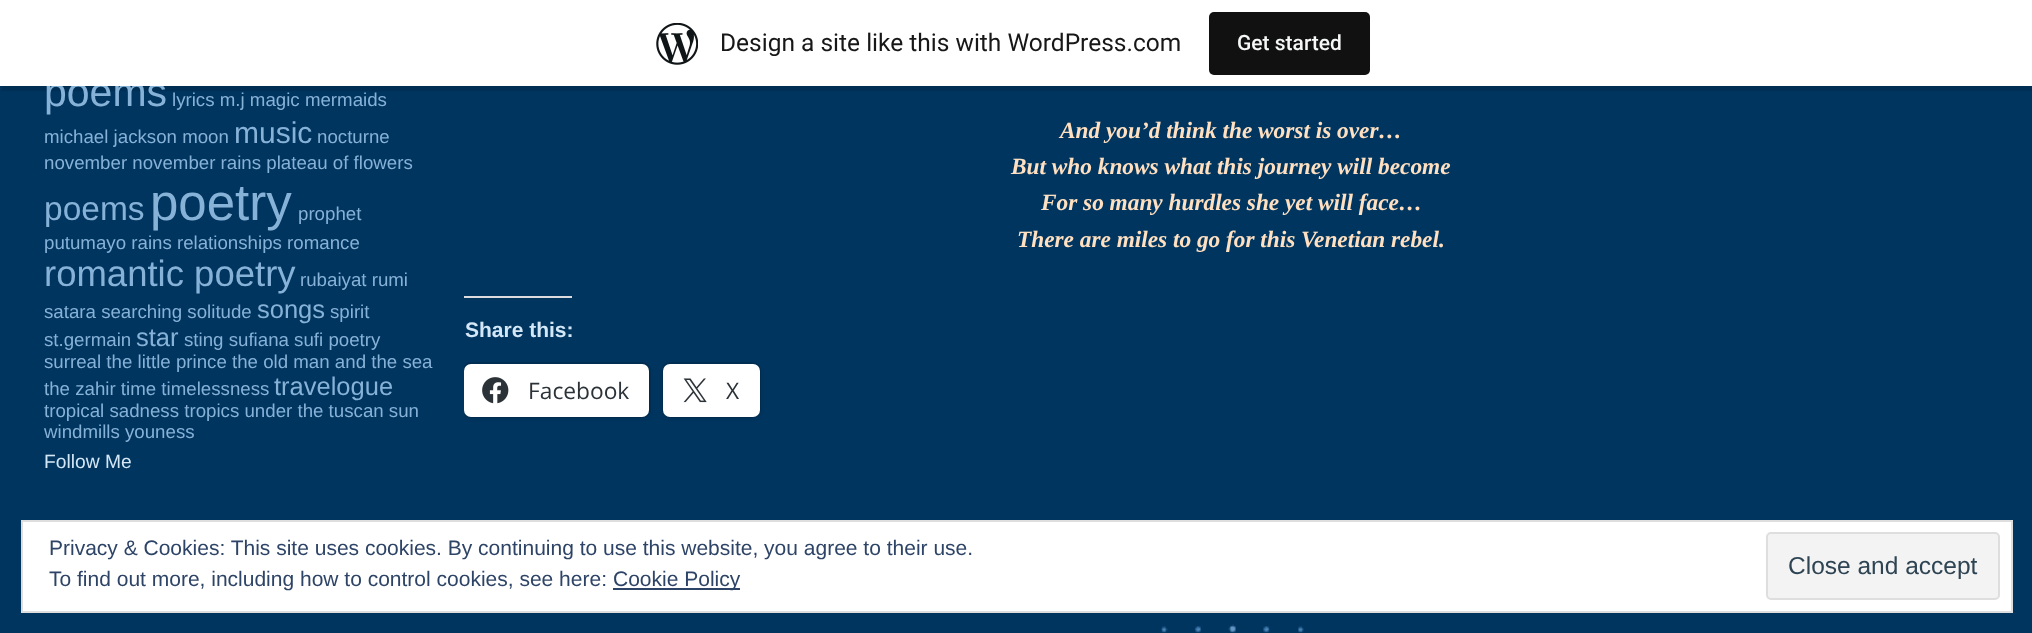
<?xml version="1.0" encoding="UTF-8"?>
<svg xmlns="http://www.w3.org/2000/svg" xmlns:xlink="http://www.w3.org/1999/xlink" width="2032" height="633">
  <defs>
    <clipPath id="clip1"><rect x="464" width="1535" height="546" /></clipPath>
    <clipPath id="clip2"><rect x="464" y="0" width="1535" height="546" /></clipPath>
  </defs>
  <rect width="100%" height="100%" fill="#00355f" />
  <rect y="2" width="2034" height="86" fill="#000000" fill-opacity="0.05" filter="blur(2px)" />
  <path d="M 2 86 v 5 h 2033 v -86 h -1 v 81 z" fill="#000000" fill-opacity="0.08" />
  <rect x="464" y="296" width="108" height="2" fill="#dcdcde" />
  <g clip-path="url(#clip1)">
    <rect x="463" y="363" width="187" height="54" rx="8" fill="none" stroke="#002f54" stroke-width="2" />
  </g>
  <g clip-path="url(#clip2)">
    <rect x="464" y="366" width="185" height="52" rx="7" fill="#000000" fill-opacity="0.12" filter="blur(2px)" />
  </g>
  <rect x="464" y="364" width="185" height="53" rx="7" fill="#ffffff" />
  <image x="482" y="377" width="27" height="27" xlink:href="image2.png" />
  <rect x="663" y="363" width="97" height="54" rx="8" fill="none" stroke="#002f54" stroke-width="2" />
  <rect x="663" y="366" width="97" height="52" rx="7" fill="#000000" fill-opacity="0.12" filter="blur(2px)" />
  <rect x="663" y="364" width="97" height="53" rx="7" fill="#ffffff" />
  <image x="683" y="378" width="24" height="25" xlink:href="image3.png" />
  <image x="1161" y="624" width="143" height="9" xlink:href="image4.png" />
  <rect x="22" y="521" width="1990" height="91" fill="#ffffff" stroke="#dedede" stroke-width="2" />
  <rect x="613" y="588" width="127" height="2" fill="#2e4467" />
  <rect x="1767" y="533" width="232" height="66" rx="4" fill="#f3f3f3" stroke="#dedede" stroke-width="2" />
  <text x="44" y="106" style="font-family: Liberation Sans; font-size: 41px; fill: #87b2d8">poems</text>
  <rect width="2032" height="86" fill="#ffffff" />
  <image x="656" y="23" width="42" height="42" xlink:href="image1.png" />
  <text x="720" y="51" style="font-family: Roboto; font-size: 24.5px; fill: #171717">Design a site like this with WordPress.com</text>
  <rect x="1209" y="12" width="161" height="63" rx="5" fill="#111111" />
  <text x="1237" y="50" style="font-family: Roboto; font-size: 21px; font-weight: 500; fill: #f6f7f7">Get started</text>
  <text x="172" y="106" style="font-family: Liberation Sans; font-size: 18.7px; fill: #87b2d8">lyrics m.j magic mermaids</text>
  <text x="44" y="143" style="font-family: Liberation Sans; font-size: 18.7px; fill: #87b2d8">michael jackson moon</text>
  <text x="234" y="143" style="font-family: Liberation Sans; font-size: 30px; fill: #87b2d8">music</text>
  <text x="317" y="143" style="font-family: Liberation Sans; font-size: 18.7px; fill: #87b2d8">nocturne</text>
  <text x="44" y="169" style="font-family: Liberation Sans; font-size: 18.7px; fill: #87b2d8">november november rains plateau of flowers</text>
  <text x="44" y="220" style="font-family: Liberation Sans; font-size: 33.5px; fill: #87b2d8">poems</text>
  <text x="150" y="220" style="font-family: Liberation Sans; font-size: 51px; fill: #87b2d8">poetry</text>
  <text x="298" y="220" style="font-family: Liberation Sans; font-size: 18.7px; fill: #87b2d8">prophet</text>
  <text x="44" y="249" style="font-family: Liberation Sans; font-size: 18.7px; fill: #87b2d8">putumayo rains relationships romance</text>
  <text x="44" y="286" style="font-family: Liberation Sans; font-size: 36.5px; fill: #87b2d8">romantic poetry</text>
  <text x="300" y="286" style="font-family: Liberation Sans; font-size: 18.7px; fill: #87b2d8">rubaiyat rumi</text>
  <text x="44" y="318" style="font-family: Liberation Sans; font-size: 18.7px; fill: #87b2d8">satara searching solitude</text>
  <text x="257" y="318" style="font-family: Liberation Sans; font-size: 25.5px; fill: #87b2d8">songs</text>
  <text x="330" y="318" style="font-family: Liberation Sans; font-size: 18.7px; fill: #87b2d8">spirit</text>
  <text x="44" y="346" style="font-family: Liberation Sans; font-size: 18.7px; fill: #87b2d8">st.germain</text>
  <text x="136" y="346" style="font-family: Liberation Sans; font-size: 25.5px; fill: #87b2d8">star</text>
  <text x="184" y="346" style="font-family: Liberation Sans; font-size: 18.7px; fill: #87b2d8">sting sufiana sufi poetry</text>
  <text x="44" y="368" style="font-family: Liberation Sans; font-size: 18.7px; fill: #87b2d8">surreal the little prince the old man and the sea</text>
  <text x="44" y="395" style="font-family: Liberation Sans; font-size: 18.7px; fill: #87b2d8">the zahir time timelessness</text>
  <text x="274" y="395" style="font-family: Liberation Sans; font-size: 25.5px; fill: #87b2d8">travelogue</text>
  <text x="44" y="417" style="font-family: Liberation Sans; font-size: 18.7px; fill: #87b2d8">tropical sadness tropics under the tuscan sun</text>
  <text x="44" y="438" style="font-family: Liberation Sans; font-size: 18.7px; fill: #87b2d8">windmills youness</text>
  <text x="44" y="468" style="font-family: Liberation Sans; font-size: 19.25px; fill: #d4e7f7">Follow Me</text>
  <text x="1060" y="138" style="font-family: Liberation Serif; font-size: 23.3px; font-weight: bold; font-style: italic; fill: #ffe0c1">And you’d think the worst is over…</text>
  <text x="1011" y="174" style="font-family: Liberation Serif; font-size: 23.3px; font-weight: bold; font-style: italic; fill: #ffe0c1">But who knows what this journey will become</text>
  <text x="1041" y="210" style="font-family: Liberation Serif; font-size: 23.3px; font-weight: bold; font-style: italic; fill: #ffe0c1">For so many hurdles she yet will face…</text>
  <text x="1017" y="247" style="font-family: Liberation Serif; font-size: 23.3px; font-weight: bold; font-style: italic; fill: #ffe0c1">There are miles to go for this Venetian rebel.</text>
  <text x="465" y="337" style="font-family: Liberation Sans; font-size: 21px; font-weight: bold; fill: #d4e7f7">Share this:</text>
  <text x="528" y="399" style="font-family: Open Sans; font-size: 22.75px; fill: #2c3338">Facebook</text>
  <text x="726" y="399" style="font-family: Open Sans; font-size: 22.75px; fill: #2c3338">X</text>
  <text x="49" y="555" style="font-family: Liberation Sans; font-size: 21px; fill: #2e4467">Privacy &amp; Cookies: This site uses cookies. By continuing to use this website, you agree to their use.</text>
  <text x="49" y="586" style="font-family: Liberation Sans; font-size: 21px; fill: #2e4467">To find out more, including how to control cookies, see here:</text>
  <text x="613" y="586" style="font-family: Liberation Sans; font-size: 21px; fill: #2e4467">Cookie Policy</text>
  <text x="1788" y="574" style="font-family: Liberation Sans; font-size: 24.5px; fill: #2e4453">Close and accept</text>
</svg>
